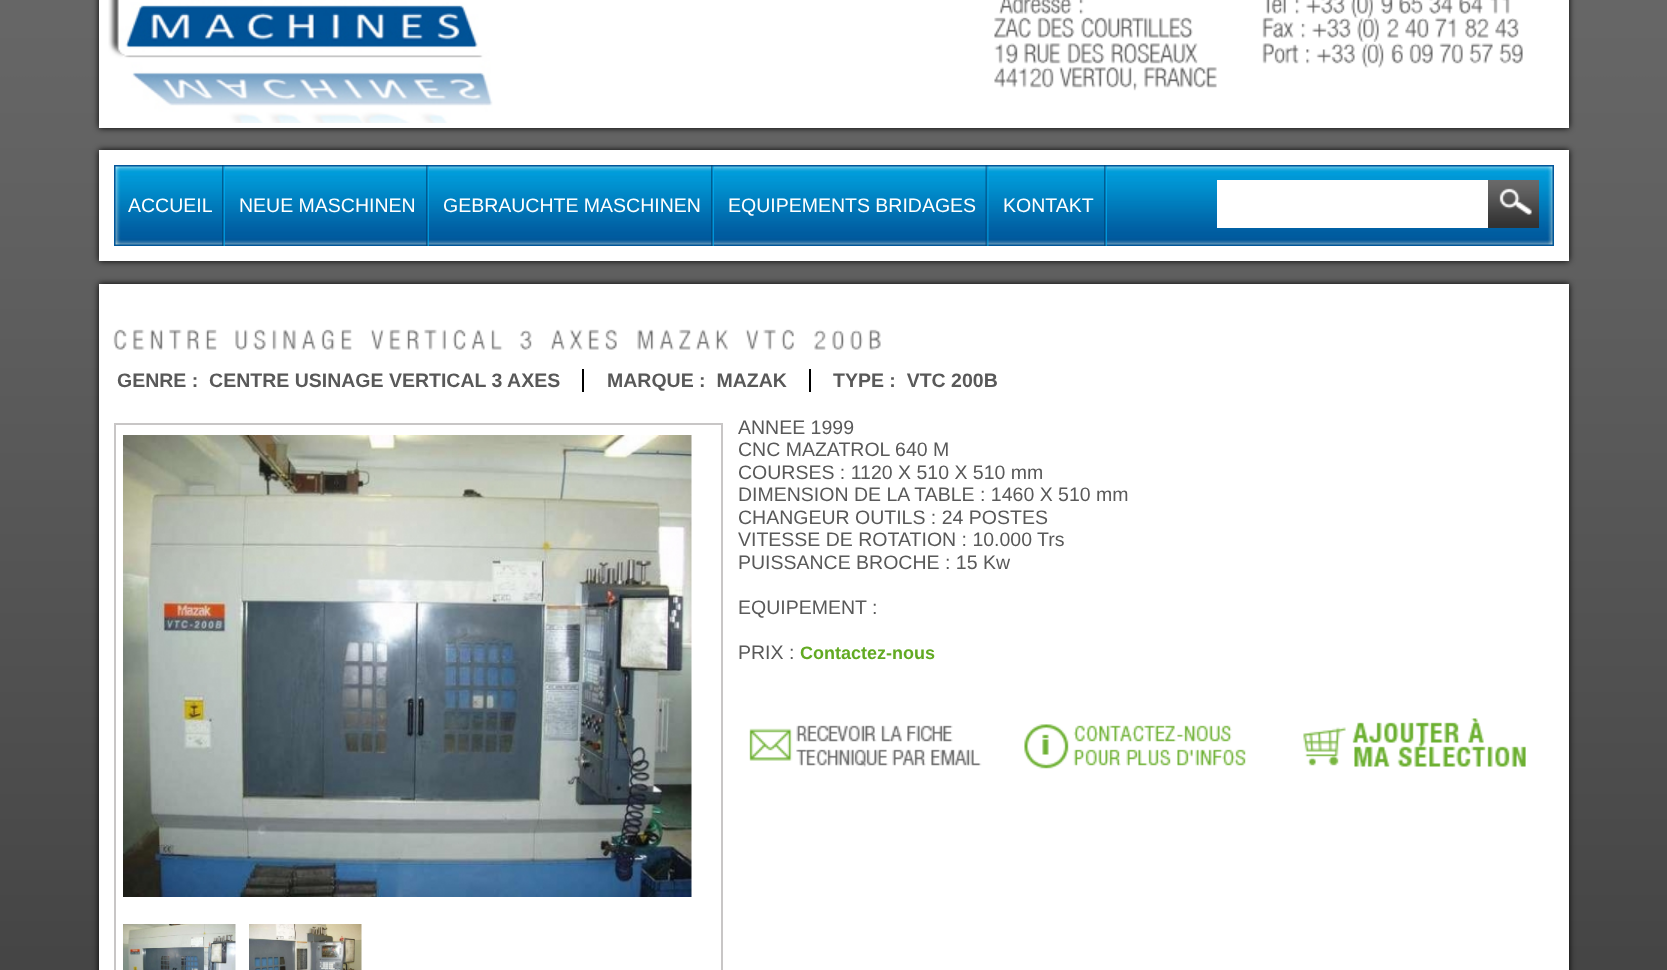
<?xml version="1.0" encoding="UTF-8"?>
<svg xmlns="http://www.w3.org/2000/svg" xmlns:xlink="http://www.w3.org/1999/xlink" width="1667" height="970">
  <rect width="100%" height="100%" fill="#ffffff" />
  <image x="0" y="0" width="1667" height="970" xlink:href="image1.png" />
  <rect x="99" y="-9" width="1470" height="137" fill="#000000" filter="blur(3px)" />
  <rect x="99" width="1470" height="128" fill="#ffffff" />
  <image x="108" y="0" width="385" height="123" xlink:href="image2.png" />
  <image x="999" y="0" width="73" height="14" xlink:href="image3.png" />
  <image x="1079" y="0" width="5" height="14" xlink:href="image4.png" />
  <image x="994" y="17" width="37" height="21" xlink:href="image5.png" />
  <image x="1037" y="17" width="38" height="21" xlink:href="image6.png" />
  <image x="1081" y="17" width="112" height="21" xlink:href="image7.png" />
  <image x="994" y="43" width="24" height="21" xlink:href="image8.png" />
  <image x="1024" y="43" width="37" height="21" xlink:href="image9.png" />
  <image x="1067" y="43" width="38" height="21" xlink:href="image10.png" />
  <image x="1111" y="43" width="87" height="21" xlink:href="image11.png" />
  <image x="994" y="67" width="60" height="21" xlink:href="image12.png" />
  <image x="1059" y="67" width="79" height="24" xlink:href="image13.png" />
  <image x="1144" y="67" width="73" height="21" xlink:href="image14.png" />
  <image x="1266" y="0" width="20" height="14" xlink:href="image15.png" />
  <image x="1295" y="0" width="5" height="14" xlink:href="image4.png" />
  <image x="1306" y="0" width="39" height="14" xlink:href="image16.png" />
  <image x="1351" y="0" width="22" height="18" xlink:href="image17.png" />
  <image x="1381" y="0" width="12" height="14" xlink:href="image18.png" />
  <image x="1399" y="0" width="24" height="14" xlink:href="image19.png" />
  <image x="1429" y="0" width="24" height="14" xlink:href="image20.png" />
  <image x="1459" y="0" width="24" height="14" xlink:href="image21.png" />
  <image x="1490" y="0" width="20" height="14" xlink:href="image22.png" />
  <image x="1262" y="17" width="32" height="21" xlink:href="image23.png" />
  <image x="1301" y="23" width="5" height="15" xlink:href="image24.png" />
  <image x="1312" y="18" width="39" height="20" xlink:href="image25.png" />
  <image x="1357" y="17" width="22" height="25" xlink:href="image26.png" />
  <image x="1387" y="18" width="12" height="20" xlink:href="image27.png" />
  <image x="1405" y="18" width="24" height="20" xlink:href="image28.png" />
  <image x="1435" y="17" width="21" height="21" xlink:href="image29.png" />
  <image x="1465" y="18" width="24" height="20" xlink:href="image30.png" />
  <image x="1495" y="18" width="24" height="20" xlink:href="image31.png" />
  <image x="1262" y="43" width="37" height="21" xlink:href="image32.png" />
  <image x="1306" y="49" width="4" height="15" xlink:href="image33.png" />
  <image x="1316" y="43" width="39" height="21" xlink:href="image34.png" />
  <image x="1361" y="43" width="23" height="25" xlink:href="image35.png" />
  <image x="1391" y="43" width="12" height="21" xlink:href="image36.png" />
  <image x="1409" y="43" width="24" height="21" xlink:href="image37.png" />
  <image x="1439" y="43" width="24" height="21" xlink:href="image38.png" />
  <image x="1469" y="43" width="24" height="21" xlink:href="image39.png" />
  <image x="1499" y="43" width="24" height="21" xlink:href="image40.png" />
  <rect x="99" y="150" width="1470" height="111" fill="#000000" filter="blur(3px)" />
  <rect x="99" y="150" width="1470" height="111" fill="#ffffff" />
  <image x="114" y="165" width="1440" height="81" xlink:href="image41.png" />
  <image x="114" y="166" width="7" height="80" xlink:href="image42.png" />
  <image x="222" y="165" width="3" height="81" xlink:href="image43.png" />
  <image x="426" y="165" width="3" height="81" xlink:href="image44.png" />
  <image x="711" y="165" width="3" height="81" xlink:href="image44.png" />
  <image x="985" y="165" width="4" height="81" xlink:href="image45.png" />
  <image x="1104" y="165" width="3" height="81" xlink:href="image44.png" />
  <image x="1545" y="166" width="9" height="79" xlink:href="image46.png" />
  <rect x="1217" y="180" width="271" height="48" fill="#ffffff" />
  <image x="1488" y="180" width="51" height="48" xlink:href="image47.png" />
  <rect x="99" y="284" width="1470" height="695" fill="#000000" filter="blur(3px)" />
  <rect x="99" y="284" width="1470" height="686" fill="#ffffff" />
  <image x="113" y="329" width="104" height="21" xlink:href="image48.png" />
  <image x="235" y="329" width="117" height="21" xlink:href="image49.png" />
  <image x="370" y="329" width="133" height="21" xlink:href="image50.png" />
  <image x="520" y="330" width="12" height="20" xlink:href="image51.png" />
  <image x="550" y="329" width="67" height="21" xlink:href="image52.png" />
  <image x="637" y="329" width="91" height="21" xlink:href="image53.png" />
  <image x="745" y="329" width="50" height="21" xlink:href="image54.png" />
  <image x="814" y="329" width="67" height="21" xlink:href="image55.png" />
  <rect x="582" y="369" width="2" height="23" fill="#000000" />
  <rect x="809" y="369" width="2" height="23" fill="#000000" />
  <rect x="115" y="424" width="607" height="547" fill="none" stroke="#c8c6c6" stroke-width="2" />
  <image x="123" y="435" width="569" height="462" xlink:href="image56.png" />
  <image x="123" y="924" width="113" height="46" xlink:href="image57.png" />
  <image x="249" y="924" width="113" height="46" xlink:href="image58.png" />
  <image x="749" y="725" width="233" height="42" xlink:href="image59.png" />
  <image x="1024" y="724" width="222" height="45" xlink:href="image60.png" />
  <image x="1303" y="718" width="223" height="49" xlink:href="image61.png" />
  <text x="128" y="212" style="font-family: Liberation Sans; font-size: 19.5px; fill: #ffffff">ACCUEIL</text>
  <text x="239" y="212" style="font-family: Liberation Sans; font-size: 19.5px; fill: #ffffff">NEUE MASCHINEN</text>
  <text x="443" y="212" style="font-family: Liberation Sans; font-size: 19.5px; fill: #ffffff">GEBRAUCHTE MASCHINEN</text>
  <text x="728" y="212" style="font-family: Liberation Sans; font-size: 19.5px; fill: #ffffff">EQUIPEMENTS BRIDAGES</text>
  <text x="1003" y="212" style="font-family: Liberation Sans; font-size: 19.5px; fill: #ffffff">KONTAKT</text>
  <text x="117" y="387" style="font-family: Liberation Sans; font-size: 19.5px; font-weight: bold; fill: #595959" xml:space="preserve">GENRE :  CENTRE USINAGE VERTICAL 3 AXES</text>
  <text x="607" y="387" style="font-family: Liberation Sans; font-size: 19.5px; font-weight: bold; fill: #595959" xml:space="preserve">MARQUE :  MAZAK</text>
  <text x="833" y="387" style="font-family: Liberation Sans; font-size: 19.5px; font-weight: bold; fill: #595959" xml:space="preserve">TYPE :  VTC 200B</text>
  <text x="738" y="434" style="font-family: Liberation Sans; font-size: 19.5px; fill: #595959">ANNEE 1999</text>
  <text x="738" y="456" style="font-family: Liberation Sans; font-size: 19.5px; fill: #595959">CNC MAZATROL 640 M</text>
  <text x="738" y="479" style="font-family: Liberation Sans; font-size: 19.5px; fill: #595959">COURSES : 1120 X 510 X 510 mm</text>
  <text x="738" y="501" style="font-family: Liberation Sans; font-size: 19.5px; fill: #595959">DIMENSION DE LA TABLE : 1460 X 510 mm</text>
  <text x="738" y="524" style="font-family: Liberation Sans; font-size: 19.5px; fill: #595959">CHANGEUR OUTILS : 24 POSTES</text>
  <text x="738" y="546" style="font-family: Liberation Sans; font-size: 19.5px; fill: #595959">VITESSE DE ROTATION : 10.000 Trs</text>
  <text x="738" y="569" style="font-family: Liberation Sans; font-size: 19.5px; fill: #595959">PUISSANCE BROCHE : 15 Kw</text>
  <text x="738" y="614" style="font-family: Liberation Sans; font-size: 19.5px; fill: #595959">EQUIPEMENT :</text>
  <text x="738" y="659" style="font-family: Liberation Sans; font-size: 19.5px; fill: #595959">PRIX :</text>
  <text x="800" y="659" style="font-family: Liberation Sans; font-size: 18px; font-weight: bold; fill: #62aa22">Contactez-nous</text>
</svg>
